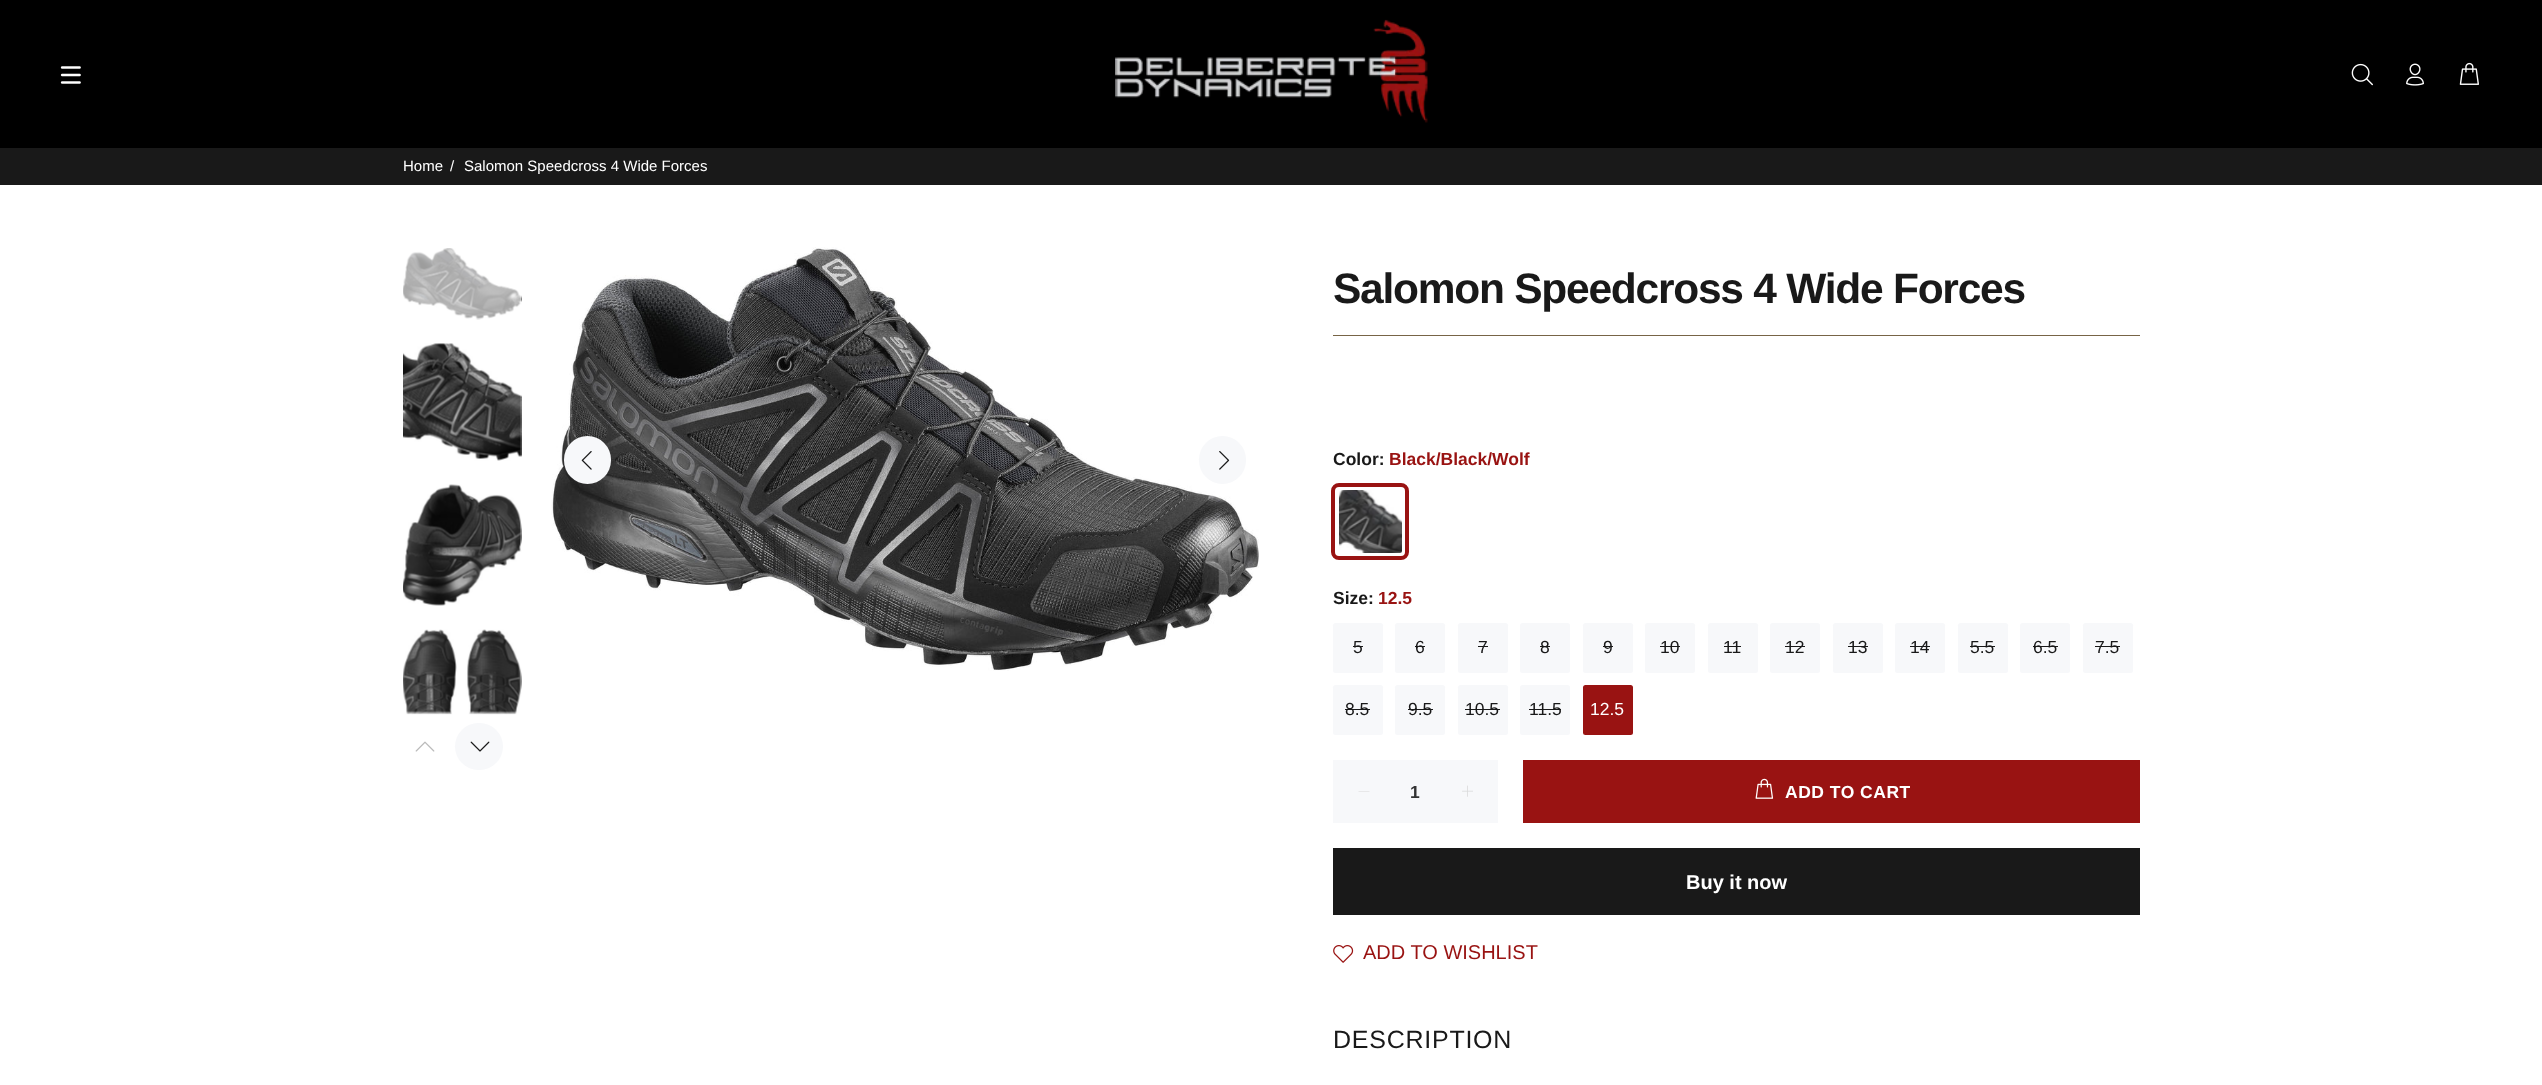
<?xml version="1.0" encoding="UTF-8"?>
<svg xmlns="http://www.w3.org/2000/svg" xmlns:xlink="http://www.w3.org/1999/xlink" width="2542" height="1085">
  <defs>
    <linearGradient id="g1" gradientUnits="userSpaceOnUse" x1="463" y1="711" x2="463" y2="729"><stop offset="0" stop-color="#ffffff" stop-opacity="0" /><stop offset="0.2" stop-color="#ffffff" /></linearGradient>
  </defs>
  <rect width="100%" height="100%" fill="#ffffff" />
  <rect width="2542" height="148" fill="#000000" />
  <image x="60" y="66" width="21" height="18" xlink:href="image1.png" />
  <image x="1115" y="19" width="313" height="104" xlink:href="image2.png" />
  <image x="2351" y="63" width="22" height="23" xlink:href="image3.png" />
  <image x="2406" y="63" width="18" height="23" xlink:href="image4.png" />
  <image x="2459" y="62" width="20" height="23" xlink:href="image5.png" />
  <rect y="148" width="2542" height="37" fill="#191919" />
  <image x="403" y="248" width="119" height="72" xlink:href="image6.png" />
  <image x="403" y="343" width="119" height="118" xlink:href="image7.png" />
  <image x="403" y="484" width="119" height="122" xlink:href="image8.png" />
  <image x="403" y="629" width="119" height="86" xlink:href="image9.png" />
  <rect x="406" y="711" width="111" height="4" fill="url(#g1)" />
  <image x="415" y="741" width="20" height="11" xlink:href="image10.png" />
  <rect x="455" y="723" width="48" height="47" rx="23.5" fill="#f7f8fa" />
  <image x="470" y="741" width="20" height="11" xlink:href="image11.png" />
  <image x="551" y="247" width="708" height="424" xlink:href="image12.png" />
  <rect x="564" y="436" width="47" height="48" rx="23.5" fill="#f7f8fa" />
  <image x="581" y="451" width="11" height="19" xlink:href="image13.png" />
  <rect x="1199" y="436" width="47" height="48" rx="23.5" fill="#f7f8fa" />
  <image x="1219" y="451" width="11" height="19" xlink:href="image14.png" />
  <rect x="1333" y="335" width="807" height="1" fill="#776446" />
  <image x="1332" y="483" width="76" height="70" xlink:href="image15.png" />
  <rect x="1336" y="487" width="69" height="69" rx="5" fill="none" stroke="#ffffff" stroke-width="6" />
  <rect x="1333" y="485" width="74" height="73" rx="6" fill="none" stroke="#991312" stroke-width="4" />
  <rect x="1333" y="623" width="50" height="50" rx="2.5" fill="#f7f8fa" />
  <rect x="1353" y="646" width="10" height="1" fill="#191919" />
  <rect x="1395" y="623" width="50" height="50" rx="2.5" fill="#f7f8fa" />
  <rect x="1415" y="646" width="10" height="1" fill="#191919" />
  <rect x="1458" y="623" width="50" height="50" rx="2.5" fill="#f7f8fa" />
  <rect x="1478" y="646" width="10" height="1" fill="#191919" />
  <rect x="1520" y="623" width="50" height="50" rx="2.5" fill="#f7f8fa" />
  <rect x="1540" y="646" width="10" height="1" fill="#191919" />
  <rect x="1583" y="623" width="50" height="50" rx="2.5" fill="#f7f8fa" />
  <rect x="1603" y="646" width="10" height="1" fill="#191919" />
  <rect x="1645" y="623" width="50" height="50" rx="2.5" fill="#f7f8fa" />
  <rect x="1660" y="646" width="20" height="1" fill="#191919" />
  <rect x="1708" y="623" width="50" height="50" rx="2.5" fill="#f7f8fa" />
  <rect x="1724" y="646" width="17" height="1" fill="#191919" />
  <rect x="1770" y="623" width="50" height="50" rx="2.5" fill="#f7f8fa" />
  <rect x="1785" y="646" width="20" height="1" fill="#191919" />
  <rect x="1833" y="623" width="50" height="50" rx="2.5" fill="#f7f8fa" />
  <rect x="1848" y="646" width="20" height="1" fill="#191919" />
  <rect x="1895" y="623" width="50" height="50" rx="2.5" fill="#f7f8fa" />
  <rect x="1910" y="646" width="20" height="1" fill="#191919" />
  <rect x="1958" y="623" width="50" height="50" rx="2.5" fill="#f7f8fa" />
  <rect x="1970" y="646" width="25" height="1" fill="#191919" />
  <rect x="2020" y="623" width="50" height="50" rx="2.5" fill="#f7f8fa" />
  <rect x="2033" y="646" width="25" height="1" fill="#191919" />
  <rect x="2083" y="623" width="50" height="50" rx="2.5" fill="#f7f8fa" />
  <rect x="2095" y="646" width="25" height="1" fill="#191919" />
  <rect x="1333" y="685" width="50" height="50" rx="2.5" fill="#f7f8fa" />
  <rect x="1345" y="709" width="25" height="1" fill="#191919" />
  <rect x="1395" y="685" width="50" height="50" rx="2.5" fill="#f7f8fa" />
  <rect x="1408" y="709" width="25" height="1" fill="#191919" />
  <rect x="1458" y="685" width="50" height="50" rx="2.5" fill="#f7f8fa" />
  <rect x="1465" y="709" width="35" height="1" fill="#191919" />
  <rect x="1520" y="685" width="50" height="50" rx="2.5" fill="#f7f8fa" />
  <rect x="1529" y="709" width="32" height="1" fill="#191919" />
  <rect x="1583" y="685" width="50" height="50" rx="2.5" fill="#991312" />
  <rect x="1333" y="760" width="165" height="63" fill="#f7f8fa" />
  <path d="M 1369.5 791 v 0.5 h -11 v -0.5 z" fill="#d8d8d8" />
  <image x="1462" y="785" width="11" height="12" xlink:href="image16.png" />
  <rect x="1523" y="760" width="617" height="63" fill="#991312" />
  <image x="1755" y="778" width="19" height="21" xlink:href="image17.png" />
  <rect x="1333" y="848" width="807" height="67" fill="#191919" />
  <image x="1333" y="945" width="21" height="18" xlink:href="image18.png" />
  <text x="403" y="171" style="font-family: Liberation Sans; font-size: 15px; fill: #ffffff">Home</text>
  <text x="450" y="171" style="font-family: Liberation Sans; font-size: 15px; fill: #ffffff">/</text>
  <text x="464" y="171" style="font-family: Liberation Sans; font-size: 15px; fill: #ffffff">Salomon Speedcross 4 Wide Forces</text>
  <text x="1333" y="303" style="font-family: Liberation Sans; font-size: 42.5px; font-weight: bold; letter-spacing: -1.25px; fill: #191919">Salomon Speedcross 4 Wide Forces</text>
  <text x="1333" y="465" style="font-family: Liberation Sans; font-size: 17.5px; font-weight: bold; fill: #191919">Color:</text>
  <text x="1389" y="465" style="font-family: Liberation Sans; font-size: 17.5px; font-weight: bold; fill: #991312">Black/Black/Wolf</text>
  <text x="1333" y="604" style="font-family: Liberation Sans; font-size: 17.5px; font-weight: bold; fill: #191919">Size:</text>
  <text x="1378" y="604" style="font-family: Liberation Sans; font-size: 17.5px; font-weight: bold; fill: #991312">12.5</text>
  <text x="1353" y="653" style="font-family: Liberation Sans; font-size: 17.5px; fill: #191919">5</text>
  <text x="1415" y="653" style="font-family: Liberation Sans; font-size: 17.5px; fill: #191919">6</text>
  <text x="1478" y="653" style="font-family: Liberation Sans; font-size: 17.5px; fill: #191919">7</text>
  <text x="1540" y="653" style="font-family: Liberation Sans; font-size: 17.5px; fill: #191919">8</text>
  <text x="1603" y="653" style="font-family: Liberation Sans; font-size: 17.5px; fill: #191919">9</text>
  <text x="1660" y="653" style="font-family: Liberation Sans; font-size: 17.5px; fill: #191919">10</text>
  <text x="1723" y="653" style="font-family: Liberation Sans; font-size: 17.5px; fill: #191919">11</text>
  <text x="1785" y="653" style="font-family: Liberation Sans; font-size: 17.5px; fill: #191919">12</text>
  <text x="1848" y="653" style="font-family: Liberation Sans; font-size: 17.5px; fill: #191919">13</text>
  <text x="1910" y="653" style="font-family: Liberation Sans; font-size: 17.5px; fill: #191919">14</text>
  <text x="1970" y="653" style="font-family: Liberation Sans; font-size: 17.5px; fill: #191919">5.5</text>
  <text x="2033" y="653" style="font-family: Liberation Sans; font-size: 17.5px; fill: #191919">6.5</text>
  <text x="2095" y="653" style="font-family: Liberation Sans; font-size: 17.5px; fill: #191919">7.5</text>
  <text x="1345" y="715" style="font-family: Liberation Sans; font-size: 17.5px; fill: #191919">8.5</text>
  <text x="1408" y="715" style="font-family: Liberation Sans; font-size: 17.5px; fill: #191919">9.5</text>
  <text x="1465" y="715" style="font-family: Liberation Sans; font-size: 17.5px; fill: #191919">10.5</text>
  <text x="1529" y="715" style="font-family: Liberation Sans; font-size: 17.5px; fill: #191919">11.5</text>
  <text x="1590" y="715" style="font-family: Liberation Sans; font-size: 17.5px; fill: #ffffff">12.5</text>
  <text x="1410" y="798" style="font-family: Liberation Sans; font-size: 17.5px; font-weight: bold; fill: #333333">1</text>
  <text x="1785" y="798" style="font-family: Liberation Sans; font-size: 17.5px; font-weight: bold; letter-spacing: 0.5px; fill: #ffffff">ADD TO CART</text>
  <text x="1686" y="889" style="font-family: Liberation Sans; font-size: 20px; font-weight: bold; fill: #ffffff">Buy it now</text>
  <text x="1363" y="959" style="font-family: Liberation Sans; font-size: 20px; fill: #991312">ADD TO WISHLIST</text>
  <text x="1333" y="1048" style="font-family: Liberation Sans; font-size: 25px; letter-spacing: 0.75px; fill: #191919">DESCRIPTION</text>
</svg>
